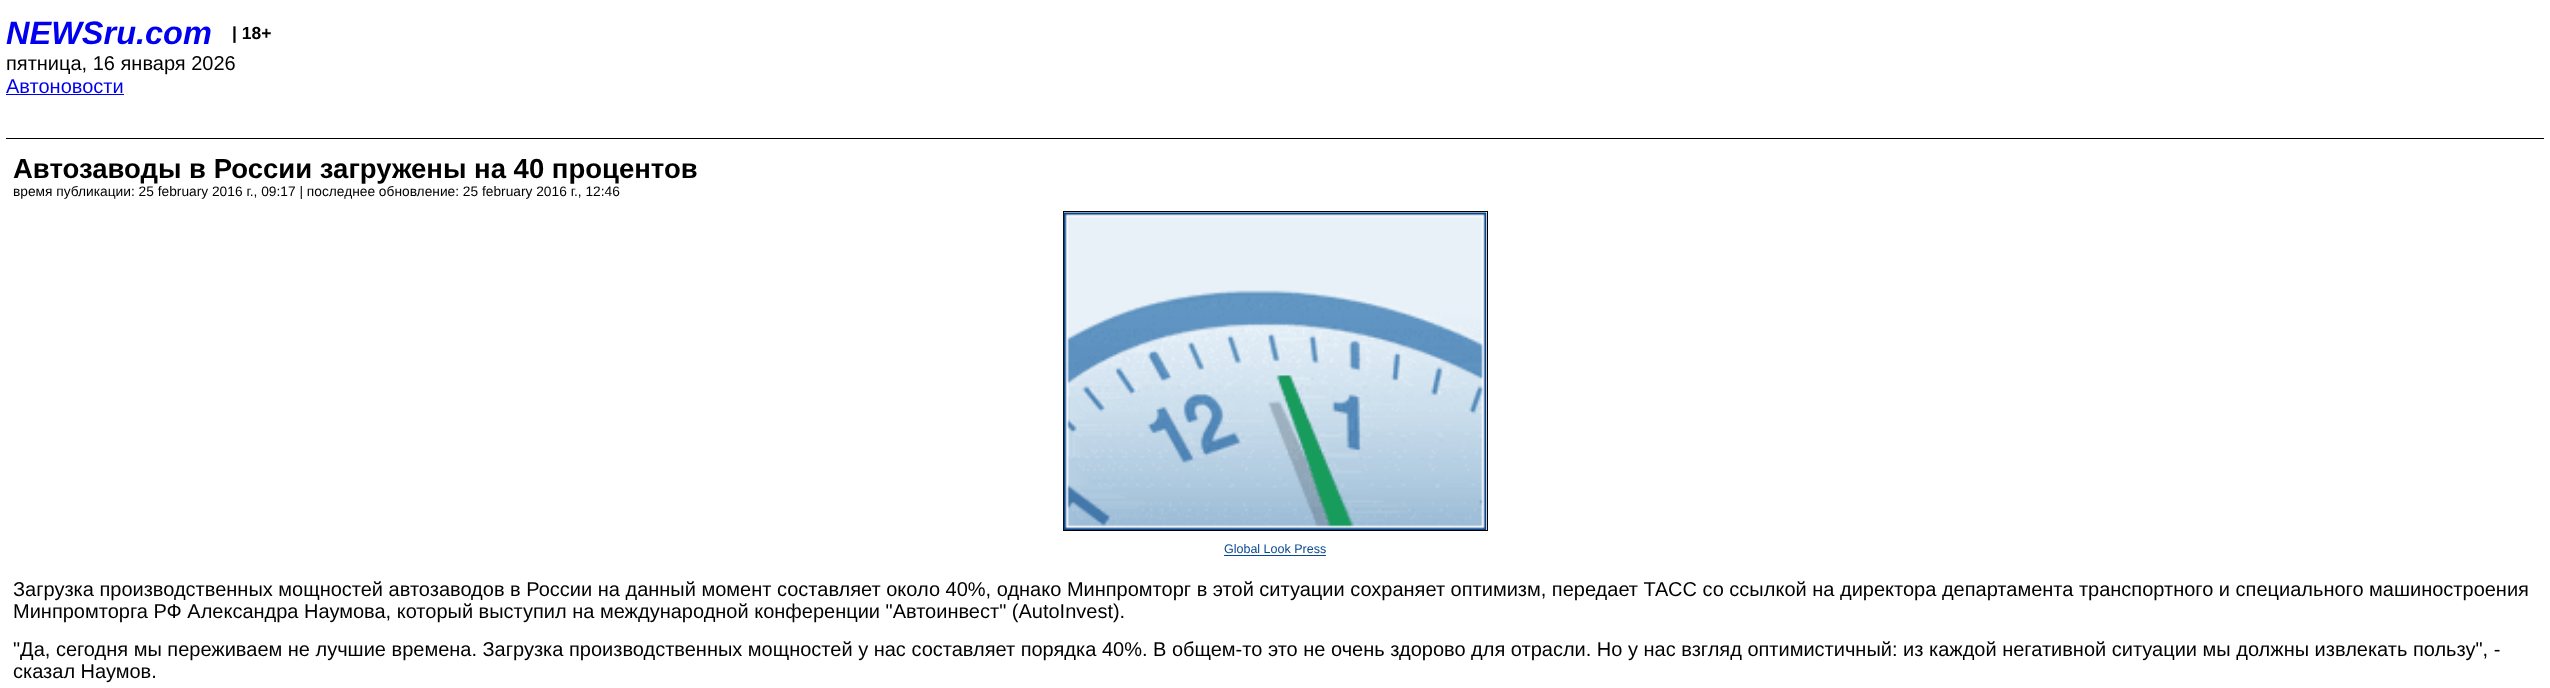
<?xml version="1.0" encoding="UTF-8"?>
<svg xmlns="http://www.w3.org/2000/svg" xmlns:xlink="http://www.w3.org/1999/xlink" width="2550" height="688">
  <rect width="100%" height="100%" fill="#ffffff" />
  <rect x="6" y="138" width="2538" height="1" fill="#000000" />
  <rect x="6" y="94" width="118" height="1" fill="#0000ee" />
  <rect x="1063.5" y="211.5" width="424" height="319" fill="none" stroke="#000000" />
  <image x="1063" y="212" width="424" height="318" xlink:href="image1.png" />
  <rect x="1224" y="555" width="102" height="1" fill="#09488f" />
  <text x="6" y="44" style="font-family: Liberation Sans; font-size: 32.5px; font-weight: bold; font-style: italic; fill: #0000ee">NEWSru.com</text>
  <text x="232" y="39" style="font-family: Liberation Sans; font-size: 17.5px; font-weight: bold; fill: #000000">| 18+</text>
  <text x="6" y="70" style="font-family: Liberation Sans; font-size: 20px; fill: #000000">пятница, 16 января 2026</text>
  <text x="6" y="93" style="font-family: Liberation Sans; font-size: 20px; fill: #0000ee">Автоновости</text>
  <text x="13" y="178" style="font-family: Liberation Sans; font-size: 27.5px; font-weight: bold; fill: #000000">Автозаводы в России загружены на 40 процентов</text>
  <text x="13" y="196" style="font-family: Liberation Sans; font-size: 13.75px; fill: #000000">время публикации: 25 february 2016 г., 09:17 | последнее обновление: 25 february 2016 г., 12:46</text>
  <text x="1224" y="553" style="font-family: Liberation Sans; font-size: 12.5px; fill: #09488f">Global Look Press</text>
  <text x="13" y="596" style="font-family: Liberation Sans; font-size: 20px; fill: #000000">Загрузка производственных мощностей автозаводов в России на данный момент составляет около 40%, однако Минпромторг в этой ситуации сохраняет оптимизм, передает ТАСС со ссылкой на директора департамента транспортного и специального машиностроения</text>
  <text x="13" y="618" style="font-family: Liberation Sans; font-size: 20px; fill: #000000">Минпромторга РФ Александра Наумова, который выступил на международной конференции "Автоинвест" (AutoInvest).</text>
  <text x="13" y="656" style="font-family: Liberation Sans; font-size: 20px; fill: #000000">"Да, сегодня мы переживаем не лучшие времена. Загрузка производственных мощностей у нас составляет порядка 40%. В общем-то это не очень здорово для отрасли. Но у нас взгляд оптимистичный: из каждой негативной ситуации мы должны извлекать пользу", -</text>
  <text x="13" y="678" style="font-family: Liberation Sans; font-size: 20px; fill: #000000">сказал Наумов.</text>
</svg>
